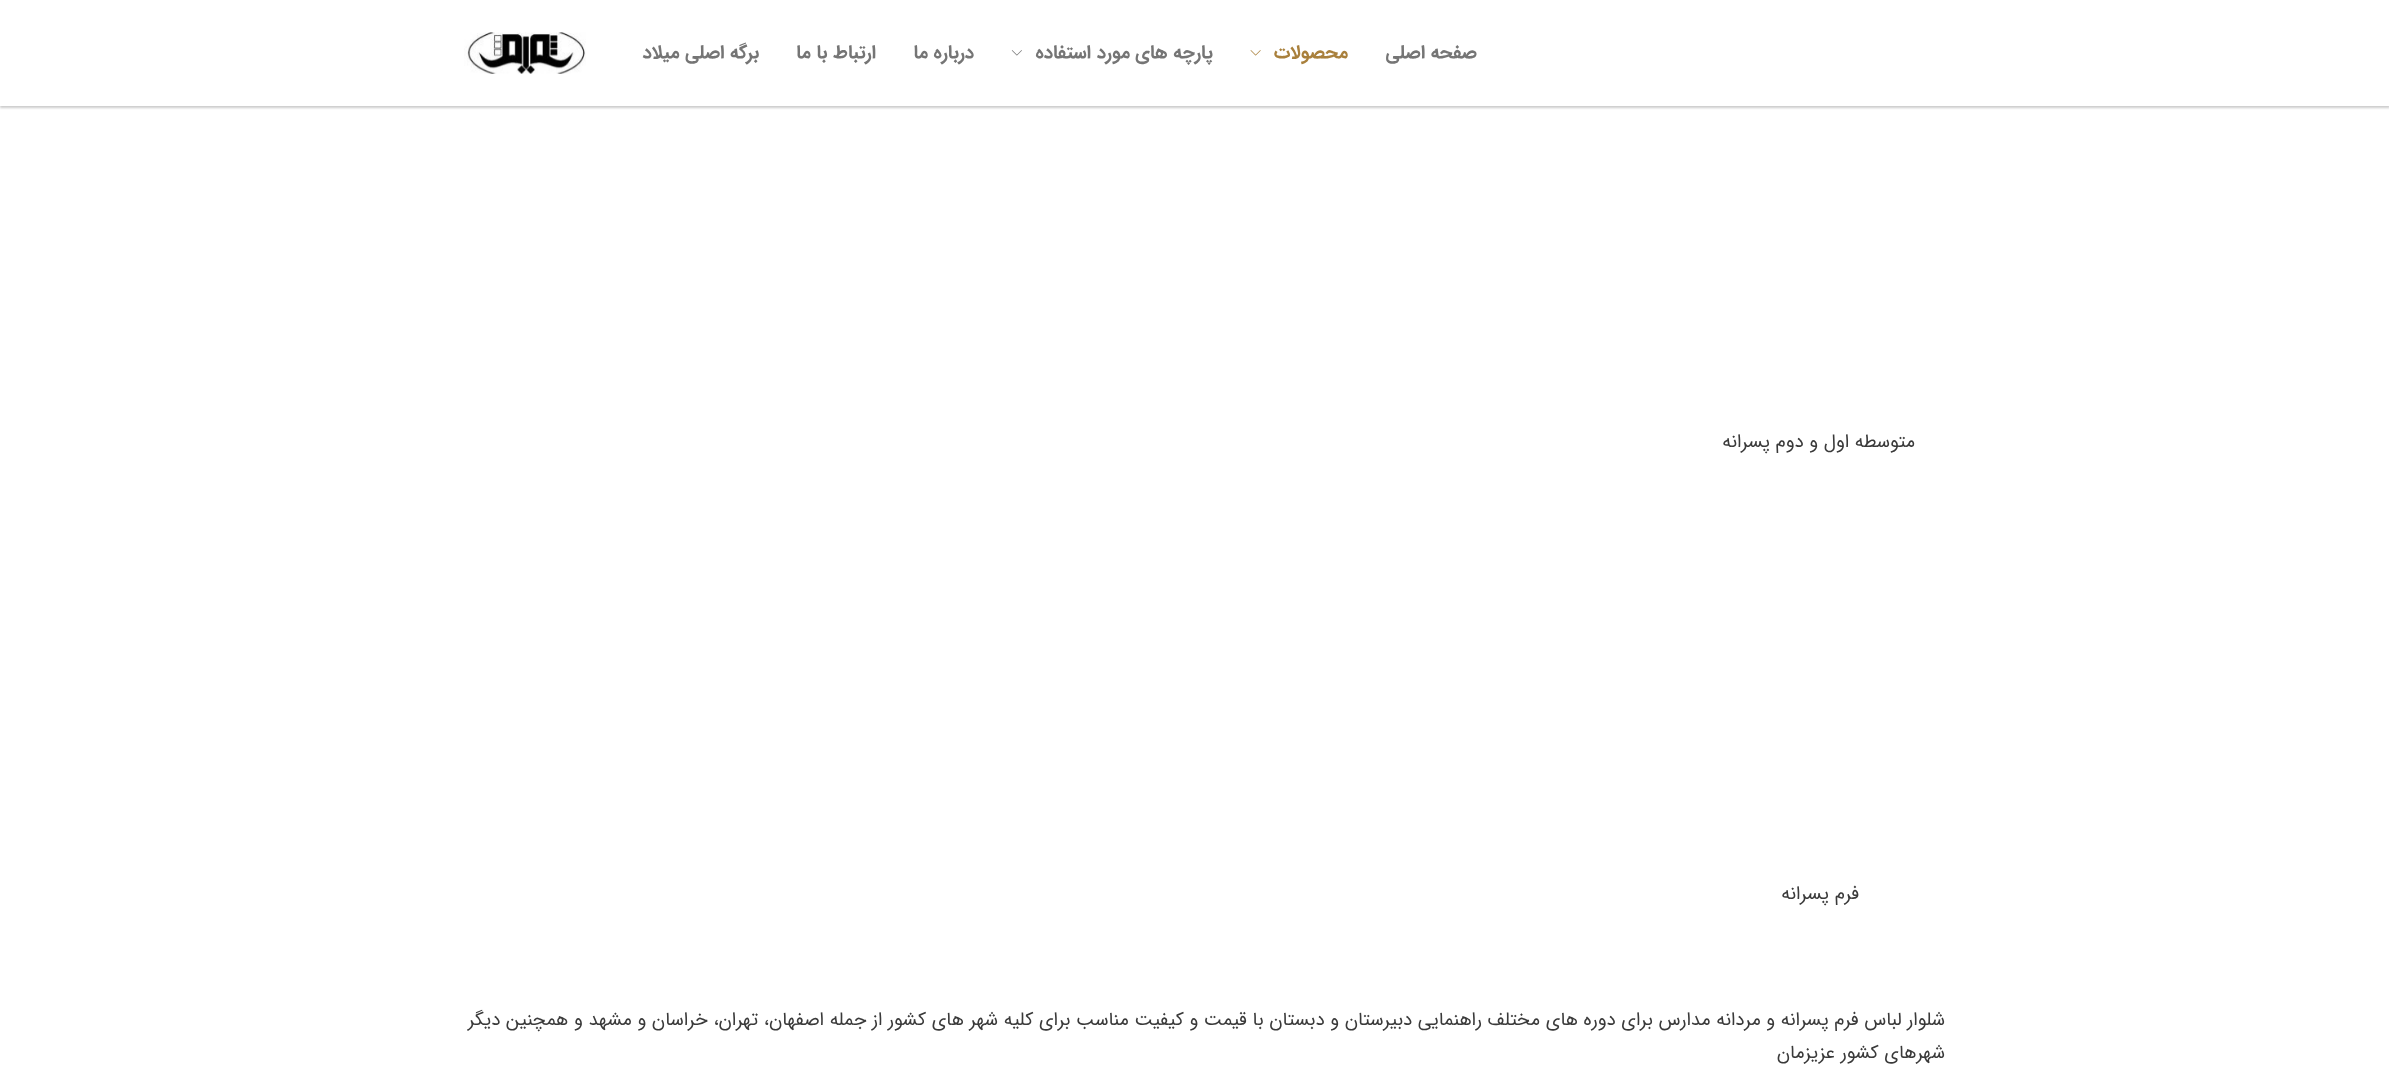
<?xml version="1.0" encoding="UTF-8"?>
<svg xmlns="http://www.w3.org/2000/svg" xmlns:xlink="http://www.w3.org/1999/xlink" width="2389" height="1072">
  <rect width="100%" height="100%" fill="#ffffff" />
  <rect y="1" width="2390" height="107" fill="#000000" fill-opacity="0.2" filter="blur(1px)" />
  <rect width="2389" height="106" fill="#ffffff" />
  <image x="1250" y="50" width="11" height="6" xlink:href="image1.png" />
  <image x="1011" y="50" width="11" height="6" xlink:href="image2.png" />
  <image x="464" y="32" width="122" height="42" xlink:href="image3.png" />
  <text x="1477" y="58" style="font-family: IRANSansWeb; font-size: 18.75px; font-weight: bold; direction: rtl; fill: #757575">صفحه اصلی</text>
  <text x="1348" y="58" style="font-family: IRANSansWeb; font-size: 18.75px; font-weight: bold; direction: rtl; fill: #a9803c">محصولات</text>
  <text x="1213" y="58" style="font-family: IRANSansWeb; font-size: 18.75px; font-weight: bold; direction: rtl; fill: #757575">پارچه های مورد استفاده</text>
  <text x="974" y="58" style="font-family: IRANSansWeb; font-size: 18.75px; font-weight: bold; direction: rtl; fill: #757575">درباره ما</text>
  <text x="876" y="58" style="font-family: IRANSansWeb; font-size: 18.75px; font-weight: bold; direction: rtl; fill: #757575">ارتباط با ما</text>
  <text x="759" y="58" style="font-family: IRANSansWeb; font-size: 18.75px; font-weight: bold; direction: rtl; fill: #757575">برگه اصلی میلاد</text>
  <text x="1915" y="447" style="font-family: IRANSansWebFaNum; font-size: 18.75px; direction: rtl; fill: #3a3a3a">متوسطه اول و دوم پسرانه</text>
  <text x="1859" y="899" style="font-family: IRANSansWebFaNum; font-size: 18.75px; direction: rtl; fill: #3a3a3a">فرم پسرانه</text>
  <text x="1945" y="1025" style="font-family: IRANSansWebFaNum; font-size: 18.75px; direction: rtl; fill: #3a3a3a">شلوار لباس فرم پسرانه و مردانه مدارس برای دوره های مختلف راهنمایی دبیرستان و دبستان با قیمت و کیفیت مناسب برای کلیه شهر های کشور از جمله اصفهان، تهران، خراسان و مشهد و همچنین دیگر</text>
  <text x="1945" y="1058" style="font-family: IRANSansWebFaNum; font-size: 18.75px; direction: rtl; fill: #3a3a3a">شهرهای کشور عزیزمان</text>
</svg>
